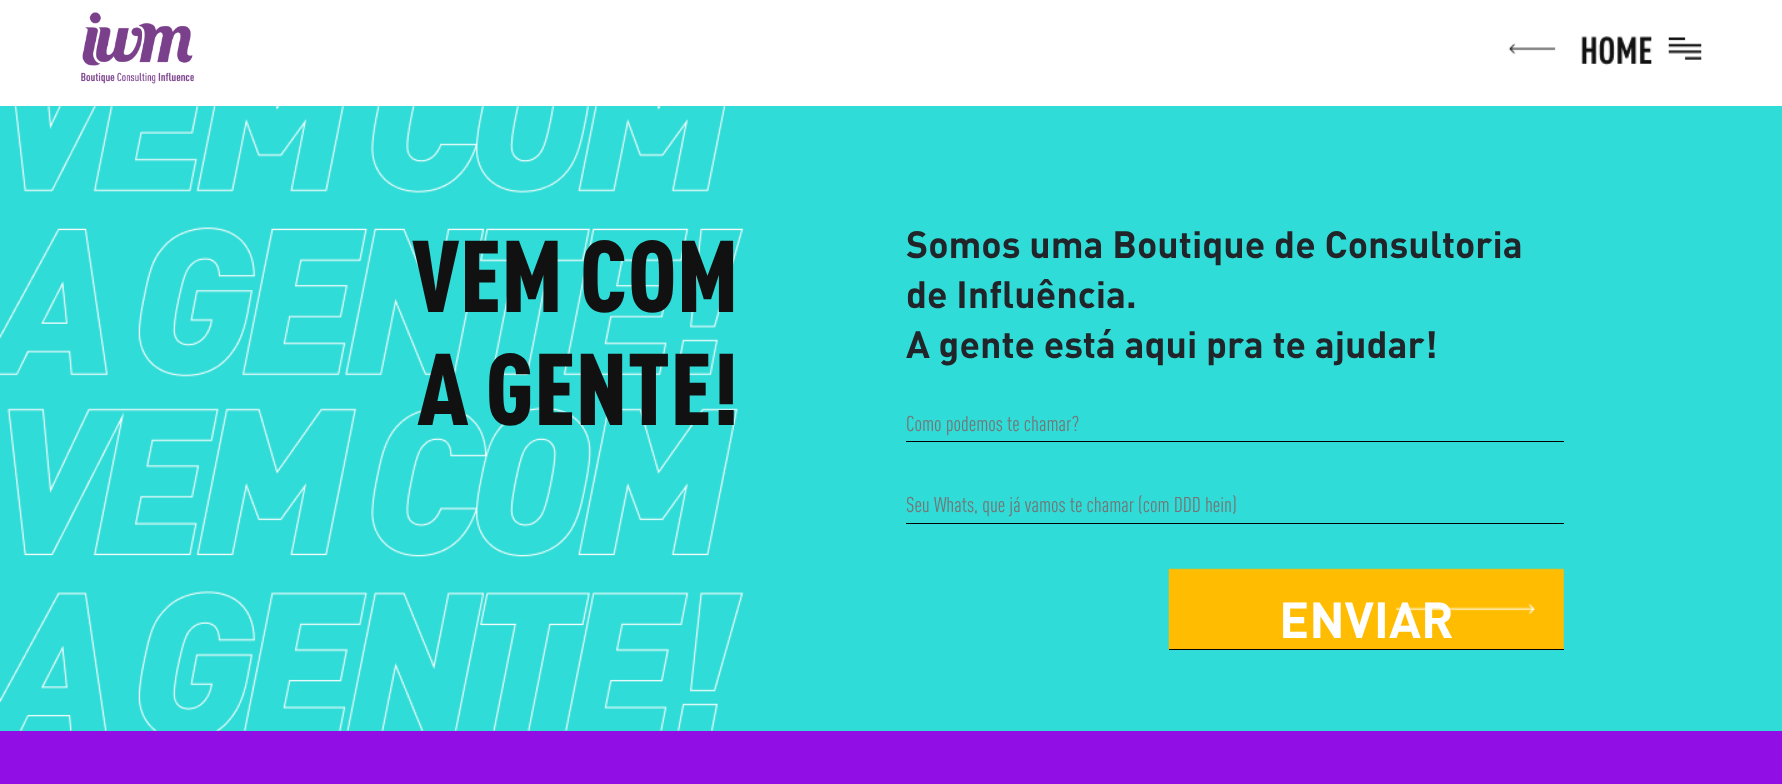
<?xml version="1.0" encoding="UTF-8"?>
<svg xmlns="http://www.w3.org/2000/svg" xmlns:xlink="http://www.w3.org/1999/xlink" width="1782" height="784">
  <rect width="100%" height="100%" fill="#ffffff" />
  <image x="81" y="12" width="113" height="72" xlink:href="image1.png" />
  <image x="1508" y="36" width="144" height="30" xlink:href="image2.png" />
  <image x="1668" y="37" width="34" height="23" xlink:href="image3.png" />
  <rect y="106" width="1782" height="625" fill="#30dcd7" />
  <image x="0" y="106" width="1782" height="625" xlink:href="image4.png" />
  <rect x="906" y="441" width="658" height="1" fill="#000000" />
  <rect x="906" y="523" width="658" height="1" fill="#000000" />
  <image x="1168" y="568" width="396" height="82" xlink:href="image5.png" />
  <rect x="1169" y="649" width="395" height="1" fill="#000000" />
  <rect y="731" width="1782" height="53" fill="#910fe5" />
  <text x="412" y="312" style="font-family: DIN; font-size: 100px; font-weight: 900; fill: #111111">VEM COM</text>
  <text x="417" y="425" style="font-family: DIN; font-size: 100px; font-weight: 900; fill: #111111">A GENTE!</text>
  <text x="906" y="258" style="font-family: DIN; font-size: 37.5px; font-weight: bold; fill: #212529">Somos uma Boutique de Consultoria</text>
  <text x="906" y="308" style="font-family: DIN; font-size: 37.5px; font-weight: bold; fill: #212529">de Influência.</text>
  <text x="906" y="358" style="font-family: DIN; font-size: 37.5px; font-weight: bold; fill: #212529">A gente está aqui pra te ajudar!</text>
  <text x="906" y="431" style="font-family: DIN; font-size: 21.25px; fill: #757575">Como podemos te chamar?</text>
  <text x="906" y="512" style="font-family: DIN; font-size: 21.25px; fill: #757575">Seu Whats, que já vamos te chamar (com DDD hein)</text>
  <text x="1279" y="638" style="font-family: DIN; font-size: 50px; font-weight: bold; fill: #ffffff">ENVIAR</text>
</svg>
